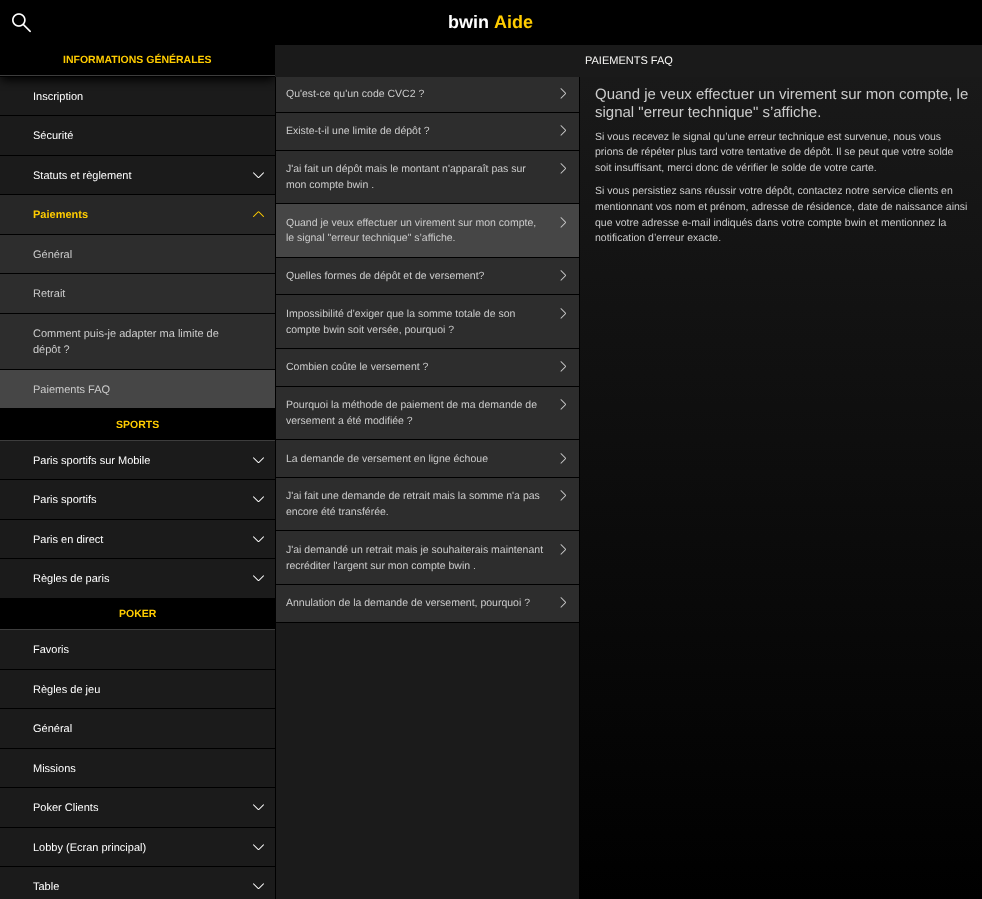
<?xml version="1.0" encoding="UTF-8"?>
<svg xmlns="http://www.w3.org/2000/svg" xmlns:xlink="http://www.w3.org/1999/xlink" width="982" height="899">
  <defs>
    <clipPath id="clip1"><rect x="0" y="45" width="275" height="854" /></clipPath>
    <linearGradient id="g1" gradientUnits="userSpaceOnUse" x1="629" y1="45" x2="629" y2="899"><stop offset="0" stop-color="#1a1a1a" /><stop offset="1" stop-color="#000000" /></linearGradient>
  </defs>
  <rect width="100%" height="100%" fill="#ffffff" />
  <rect y="77" width="275" height="822" fill="#1b1b1b" />
  <rect y="76" width="275" height="1" fill="#000000" />
  <rect x="275" y="77" width="1" height="822" fill="#000000" />
  <rect x="276" y="77" width="303" height="35" fill="#2d2d2d" />
  <g clip-path="url(#clip1)">
    <rect x="1" y="51" width="273" height="29" fill="#000000" filter="blur(5px)" />
  </g>
  <rect width="982" height="45" fill="#000000" />
  <image x="12" y="13" width="19" height="20" xlink:href="image1.png" />
  <rect y="45" width="275" height="30" fill="#000000" />
  <rect y="75" width="275" height="1" fill="#3d3d3d" />
  <rect y="115" width="275" height="1" fill="#000000" />
  <rect y="155" width="275" height="1" fill="#000000" />
  <rect y="194" width="275" height="1" fill="#000000" />
  <image x="253" y="172" width="11" height="6" xlink:href="image2.png" />
  <rect y="195" width="275" height="39" fill="#272727" />
  <image x="253" y="211" width="11" height="6" xlink:href="image3.png" />
  <rect y="234" width="275" height="1" fill="#000000" />
  <rect y="273" width="275" height="1" fill="#000000" />
  <rect y="235" width="275" height="38" fill="#2d2d2d" />
  <rect y="313" width="275" height="1" fill="#000000" />
  <rect y="274" width="275" height="39" fill="#2d2d2d" />
  <rect y="369" width="275" height="1" fill="#000000" />
  <rect y="314" width="275" height="55" fill="#2d2d2d" />
  <rect y="370" width="275" height="38" fill="#464646" />
  <rect y="408" width="275" height="32" fill="#000000" />
  <rect y="440" width="275" height="1" fill="#3d3d3d" />
  <rect y="479" width="275" height="1" fill="#000000" />
  <image x="253" y="457" width="11" height="6" xlink:href="image2.png" />
  <rect y="519" width="275" height="1" fill="#000000" />
  <image x="253" y="496" width="11" height="6" xlink:href="image2.png" />
  <rect y="558" width="275" height="1" fill="#000000" />
  <image x="253" y="536" width="11" height="6" xlink:href="image2.png" />
  <image x="253" y="575" width="11" height="6" xlink:href="image2.png" />
  <rect y="598" width="275" height="31" fill="#000000" />
  <rect y="629" width="275" height="1" fill="#3d3d3d" />
  <rect y="669" width="275" height="1" fill="#000000" />
  <rect y="708" width="275" height="1" fill="#000000" />
  <rect y="748" width="275" height="1" fill="#000000" />
  <rect y="787" width="275" height="1" fill="#000000" />
  <rect y="827" width="275" height="1" fill="#000000" />
  <image x="253" y="804" width="11" height="6" xlink:href="image2.png" />
  <rect y="866" width="275" height="1" fill="#000000" />
  <image x="253" y="844" width="11" height="6" xlink:href="image2.png" />
  <image x="253" y="883" width="11" height="6" xlink:href="image2.png" />
  <rect x="579" y="75" width="1" height="824" fill="#000000" />
  <rect x="275" y="45" width="707" height="32" fill="#1a1a1a" />
  <rect x="580" y="77" width="402" height="822" fill="url(#g1)" />
  <rect x="276" y="623" width="303" height="276" fill="#1b1b1b" />
  <rect x="276" y="112" width="303" height="1" fill="#000000" />
  <image x="560" y="88" width="6" height="11" xlink:href="image4.png" />
  <rect x="276" y="113" width="303" height="37" fill="#2d2d2d" />
  <rect x="276" y="150" width="303" height="1" fill="#000000" />
  <image x="560" y="125" width="6" height="11" xlink:href="image4.png" />
  <rect x="276" y="151" width="303" height="52" fill="#2d2d2d" />
  <rect x="276" y="203" width="303" height="1" fill="#000000" />
  <image x="560" y="163" width="6" height="11" xlink:href="image4.png" />
  <rect x="276" y="204" width="303" height="53" fill="#464646" />
  <rect x="276" y="257" width="303" height="1" fill="#000000" />
  <image x="560" y="217" width="6" height="11" xlink:href="image5.png" />
  <rect x="276" y="258" width="303" height="36" fill="#2d2d2d" />
  <rect x="276" y="294" width="303" height="1" fill="#000000" />
  <image x="560" y="270" width="6" height="11" xlink:href="image4.png" />
  <rect x="276" y="295" width="303" height="53" fill="#2d2d2d" />
  <rect x="276" y="348" width="303" height="1" fill="#000000" />
  <image x="560" y="308" width="6" height="11" xlink:href="image4.png" />
  <rect x="276" y="349" width="303" height="37" fill="#2d2d2d" />
  <rect x="276" y="386" width="303" height="1" fill="#000000" />
  <image x="560" y="361" width="6" height="11" xlink:href="image4.png" />
  <rect x="276" y="387" width="303" height="52" fill="#2d2d2d" />
  <rect x="276" y="439" width="303" height="1" fill="#000000" />
  <image x="560" y="399" width="6" height="11" xlink:href="image4.png" />
  <rect x="276" y="440" width="303" height="37" fill="#2d2d2d" />
  <rect x="276" y="477" width="303" height="1" fill="#000000" />
  <image x="560" y="453" width="6" height="11" xlink:href="image4.png" />
  <rect x="276" y="478" width="303" height="52" fill="#2d2d2d" />
  <rect x="276" y="530" width="303" height="1" fill="#000000" />
  <image x="560" y="490" width="6" height="11" xlink:href="image4.png" />
  <rect x="276" y="531" width="303" height="53" fill="#2d2d2d" />
  <rect x="276" y="584" width="303" height="1" fill="#000000" />
  <image x="560" y="544" width="6" height="11" xlink:href="image4.png" />
  <rect x="276" y="585" width="303" height="37" fill="#2d2d2d" />
  <rect x="276" y="622" width="303" height="1" fill="#000000" />
  <image x="560" y="597" width="6" height="11" xlink:href="image4.png" />
  <text x="448" y="28" style="font-family: Liberation Sans; font-size: 18px; font-weight: bold; fill: #ffffff">bwin</text>
  <text x="494" y="28" style="font-family: Liberation Sans; font-size: 18px; font-weight: bold; fill: #ffcc00">Aide</text>
  <text x="63" y="63" style="font-family: Liberation Sans; font-size: 10.5px; font-weight: bold; fill: #ffcc00">INFORMATIONS GÉNÉRALES</text>
  <text x="33" y="100" style="font-family: Liberation Sans; font-size: 11px; fill: #ffffff">Inscription</text>
  <text x="33" y="139" style="font-family: Liberation Sans; font-size: 11px; fill: #ffffff">Sécurité</text>
  <text x="33" y="179" style="font-family: Liberation Sans; font-size: 11px; fill: #ffffff">Statuts et règlement</text>
  <text x="33" y="218" style="font-family: Liberation Sans; font-size: 11px; font-weight: bold; fill: #ffcc00">Paiements</text>
  <text x="33" y="258" style="font-family: Liberation Sans; font-size: 11px; fill: #cccccc">Général</text>
  <text x="33" y="297" style="font-family: Liberation Sans; font-size: 11px; fill: #cccccc">Retrait</text>
  <text x="33" y="337" style="font-family: Liberation Sans; font-size: 11px; fill: #cccccc">Comment puis-je adapter ma limite de</text>
  <text x="33" y="353" style="font-family: Liberation Sans; font-size: 11px; fill: #cccccc">dépôt ?</text>
  <text x="33" y="393" style="font-family: Liberation Sans; font-size: 11px; fill: #cccccc">Paiements FAQ</text>
  <text x="116" y="428" style="font-family: Liberation Sans; font-size: 10.5px; font-weight: bold; fill: #ffcc00">SPORTS</text>
  <text x="33" y="464" style="font-family: Liberation Sans; font-size: 11px; fill: #ffffff">Paris sportifs sur Mobile</text>
  <text x="33" y="503" style="font-family: Liberation Sans; font-size: 11px; fill: #ffffff">Paris sportifs</text>
  <text x="33" y="543" style="font-family: Liberation Sans; font-size: 11px; fill: #ffffff">Paris en direct</text>
  <text x="33" y="582" style="font-family: Liberation Sans; font-size: 11px; fill: #ffffff">Règles de paris</text>
  <text x="119" y="617" style="font-family: Liberation Sans; font-size: 10.5px; font-weight: bold; fill: #ffcc00">POKER</text>
  <text x="33" y="653" style="font-family: Liberation Sans; font-size: 11px; fill: #ffffff">Favoris</text>
  <text x="33" y="693" style="font-family: Liberation Sans; font-size: 11px; fill: #ffffff">Règles de jeu</text>
  <text x="33" y="732" style="font-family: Liberation Sans; font-size: 11px; fill: #ffffff">Général</text>
  <text x="33" y="772" style="font-family: Liberation Sans; font-size: 11px; fill: #ffffff">Missions</text>
  <text x="33" y="811" style="font-family: Liberation Sans; font-size: 11px; fill: #ffffff">Poker Clients</text>
  <text x="33" y="851" style="font-family: Liberation Sans; font-size: 11px; fill: #ffffff">Lobby (Ecran principal)</text>
  <text x="33" y="890" style="font-family: Liberation Sans; font-size: 11px; fill: #ffffff">Table</text>
  <text x="585" y="64" style="font-family: Liberation Sans; font-size: 11px; fill: #fbfaf8">PAIEMENTS FAQ</text>
  <text x="286" y="97" style="font-family: Liberation Sans; font-size: 10.5px; fill: #cccccc">Qu'est-ce qu'un code CVC2 ?</text>
  <text x="286" y="134" style="font-family: Liberation Sans; font-size: 10.5px; fill: #cccccc">Existe-t-il une limite de dépôt ?</text>
  <text x="286" y="172" style="font-family: Liberation Sans; font-size: 10.5px; fill: #cccccc">J'ai fait un dépôt mais le montant n'apparaît pas sur</text>
  <text x="286" y="188" style="font-family: Liberation Sans; font-size: 10.5px; fill: #cccccc">mon compte bwin .</text>
  <text x="286" y="226" style="font-family: Liberation Sans; font-size: 10.5px; fill: #cccccc">Quand je veux effectuer un virement sur mon compte,</text>
  <text x="286" y="241" style="font-family: Liberation Sans; font-size: 10.5px; fill: #cccccc">le signal "erreur technique" s’affiche.</text>
  <text x="286" y="279" style="font-family: Liberation Sans; font-size: 10.5px; fill: #cccccc">Quelles formes de dépôt et de versement?</text>
  <text x="286" y="317" style="font-family: Liberation Sans; font-size: 10.5px; fill: #cccccc">Impossibilité d’exiger que la somme totale de son</text>
  <text x="286" y="333" style="font-family: Liberation Sans; font-size: 10.5px; fill: #cccccc">compte bwin soit versée, pourquoi ?</text>
  <text x="286" y="370" style="font-family: Liberation Sans; font-size: 10.5px; fill: #cccccc">Combien coûte le versement ?</text>
  <text x="286" y="408" style="font-family: Liberation Sans; font-size: 10.5px; fill: #cccccc">Pourquoi la méthode de paiement de ma demande de</text>
  <text x="286" y="424" style="font-family: Liberation Sans; font-size: 10.5px; fill: #cccccc">versement a été modifiée ?</text>
  <text x="286" y="462" style="font-family: Liberation Sans; font-size: 10.5px; fill: #cccccc">La demande de versement en ligne échoue</text>
  <text x="286" y="499" style="font-family: Liberation Sans; font-size: 10.5px; fill: #cccccc">J'ai fait une demande de retrait mais la somme n'a pas</text>
  <text x="286" y="515" style="font-family: Liberation Sans; font-size: 10.5px; fill: #cccccc">encore été transférée.</text>
  <text x="286" y="553" style="font-family: Liberation Sans; font-size: 10.5px; fill: #cccccc">J'ai demandé un retrait mais je souhaiterais maintenant</text>
  <text x="286" y="569" style="font-family: Liberation Sans; font-size: 10.5px; fill: #cccccc">recréditer l'argent sur mon compte bwin .</text>
  <text x="286" y="606" style="font-family: Liberation Sans; font-size: 10.5px; fill: #cccccc">Annulation de la demande de versement, pourquoi ?</text>
  <text x="595" y="99" style="font-family: Liberation Sans; font-size: 15px; fill: #cccccc">Quand je veux effectuer un virement sur mon compte, le</text>
  <text x="595" y="117" style="font-family: Liberation Sans; font-size: 15px; fill: #cccccc">signal "erreur technique" s’affiche.</text>
  <text x="595" y="140" style="font-family: Liberation Sans; font-size: 10.5px; fill: #cccccc">Si vous recevez le signal qu’une erreur technique est survenue, nous vous</text>
  <text x="595" y="155" style="font-family: Liberation Sans; font-size: 10.5px; fill: #cccccc">prions de répéter plus tard votre tentative de dépôt. Il se peut que votre solde</text>
  <text x="595" y="171" style="font-family: Liberation Sans; font-size: 10.5px; fill: #cccccc">soit insuffisant, merci donc de vérifier le solde de votre carte.</text>
  <text x="595" y="194" style="font-family: Liberation Sans; font-size: 10.5px; fill: #cccccc">Si vous persistiez sans réussir votre dépôt, contactez notre service clients en</text>
  <text x="595" y="210" style="font-family: Liberation Sans; font-size: 10.5px; fill: #cccccc">mentionnant vos nom et prénom, adresse de résidence, date de naissance ainsi</text>
  <text x="595" y="226" style="font-family: Liberation Sans; font-size: 10.5px; fill: #cccccc">que votre adresse e-mail indiqués dans votre compte bwin et mentionnez la</text>
  <text x="595" y="241" style="font-family: Liberation Sans; font-size: 10.5px; fill: #cccccc">notification d’erreur exacte.</text>
</svg>
